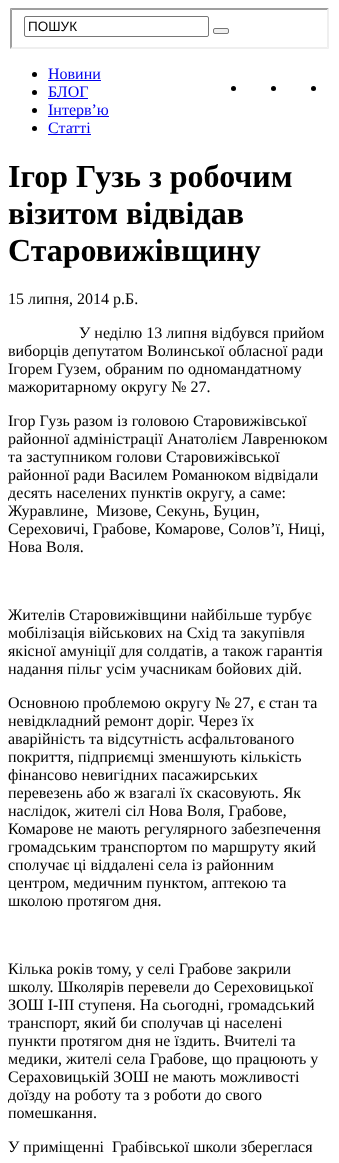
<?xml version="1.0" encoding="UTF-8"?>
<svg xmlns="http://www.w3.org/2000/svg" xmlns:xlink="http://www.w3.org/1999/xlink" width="339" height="1163">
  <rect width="100%" height="100%" fill="#ffffff" />
  <path d="M 10 8 h 319 l -2 2 h -315 z" fill="#9f9f9f" />
  <path d="M 329 8 v 41 l -2 -2 v -37 z" fill="#efefef" />
  <path d="M 329 49 h -319 l 2 -2 h 315 z" fill="#efefef" />
  <path d="M 10 49 v -41 l 2 2 v 37 z" fill="#9f9f9f" />
  <rect x="24.5" y="16.5" width="184" height="20" rx="1.5" fill="none" stroke="#767676" />
  <rect x="213.5" y="28.5" width="15" height="5" rx="1.5" fill="#efefef" stroke="#767676" />
  <circle cx="233.5" cy="88.5" r="2.5" fill="#000000" />
  <circle cx="273.5" cy="88.5" r="2.5" fill="#000000" />
  <circle cx="313.5" cy="88.5" r="2.5" fill="#000000" />
  <circle cx="34.5" cy="74.5" r="2.5" fill="#000000" />
  <rect x="48" y="80" width="53" height="1" fill="#0000ee" />
  <circle cx="34.5" cy="92.5" r="2.5" fill="#000000" />
  <rect x="48" y="98" width="40" height="1" fill="#0000ee" />
  <circle cx="34.5" cy="110.5" r="2.5" fill="#000000" />
  <rect x="48" y="116" width="61" height="1" fill="#0000ee" />
  <circle cx="34.5" cy="128.5" r="2.5" fill="#000000" />
  <rect x="48" y="134" width="43" height="1" fill="#0000ee" />
  <text x="28" y="31" style="font-family: Liberation Sans; font-size: 13.5px; fill: #000000">ПОШУК</text>
  <text x="48" y="79" style="font-family: Liberation Serif; font-size: 16px; fill: #0000ee">Новини</text>
  <text x="48" y="97" style="font-family: Liberation Serif; font-size: 16px; fill: #0000ee">БЛОГ</text>
  <text x="48" y="115" style="font-family: Liberation Serif; font-size: 16px; fill: #0000ee">Інтерв’ю</text>
  <text x="48" y="133" style="font-family: Liberation Serif; font-size: 16px; fill: #0000ee">Статті</text>
  <text x="8" y="187" style="font-family: Liberation Serif; font-size: 32px; font-weight: bold; fill: #000000">Ігор Гузь з робочим</text>
  <text x="8" y="224" style="font-family: Liberation Serif; font-size: 32px; font-weight: bold; fill: #000000">візитом відвідав</text>
  <text x="8" y="261" style="font-family: Liberation Serif; font-size: 32px; font-weight: bold; fill: #000000">Старовижівщину</text>
  <text x="8" y="304" style="font-family: Liberation Serif; font-size: 16px; fill: #000000">15 липня, 2014 р.Б.</text>
  <text x="79" y="338" style="font-family: Liberation Serif; font-size: 16px; fill: #000000">У неділю 13 липня відбувся прийом</text>
  <text x="8" y="356" style="font-family: Liberation Serif; font-size: 16px; fill: #000000">виборців депутатом Волинської обласної ради</text>
  <text x="8" y="374" style="font-family: Liberation Serif; font-size: 16px; fill: #000000">Ігорем Гузем, обраним по одномандатному</text>
  <text x="8" y="392" style="font-family: Liberation Serif; font-size: 16px; fill: #000000">мажоритарному округу № 27.</text>
  <text x="8" y="426" style="font-family: Liberation Serif; font-size: 16px; fill: #000000">Ігор Гузь разом із головою Старовижівської</text>
  <text x="8" y="444" style="font-family: Liberation Serif; font-size: 16px; fill: #000000">районної адміністрації Анатолієм Лавренюком</text>
  <text x="8" y="462" style="font-family: Liberation Serif; font-size: 16px; fill: #000000">та заступником голови Старовижівської</text>
  <text x="8" y="480" style="font-family: Liberation Serif; font-size: 16px; fill: #000000">районної ради Василем Романюком відвідали</text>
  <text x="8" y="498" style="font-family: Liberation Serif; font-size: 16px; fill: #000000">десять населених пунктів округу, а саме:</text>
  <text x="8" y="516" style="font-family: Liberation Serif; font-size: 16px; fill: #000000" xml:space="preserve">Журавлине,  Мизове, Секунь, Буцин,</text>
  <text x="8" y="534" style="font-family: Liberation Serif; font-size: 16px; fill: #000000">Сереховичі, Грабове, Комарове, Солов’ї, Ниці,</text>
  <text x="8" y="552" style="font-family: Liberation Serif; font-size: 16px; fill: #000000">Нова Воля.</text>
  <text x="8" y="620" style="font-family: Liberation Serif; font-size: 16px; fill: #000000">Жителів Старовижівщини найбільше турбує</text>
  <text x="8" y="638" style="font-family: Liberation Serif; font-size: 16px; fill: #000000">мобілізація військових на Схід та закупівля</text>
  <text x="8" y="656" style="font-family: Liberation Serif; font-size: 16px; fill: #000000">якісної амуніції для солдатів, а також гарантія</text>
  <text x="8" y="674" style="font-family: Liberation Serif; font-size: 16px; fill: #000000">надання пільг усім учасникам бойових дій.</text>
  <text x="8" y="708" style="font-family: Liberation Serif; font-size: 16px; fill: #000000">Основною проблемою округу № 27, є стан та</text>
  <text x="8" y="726" style="font-family: Liberation Serif; font-size: 16px; fill: #000000">невідкладний ремонт доріг. Через їх</text>
  <text x="8" y="744" style="font-family: Liberation Serif; font-size: 16px; fill: #000000">аварійність та відсутність асфальтованого</text>
  <text x="8" y="762" style="font-family: Liberation Serif; font-size: 16px; fill: #000000">покриття, підприємці зменшують кількість</text>
  <text x="8" y="780" style="font-family: Liberation Serif; font-size: 16px; fill: #000000">фінансово невигідних пасажирських</text>
  <text x="8" y="798" style="font-family: Liberation Serif; font-size: 16px; fill: #000000">перевезень або ж взагалі їх скасовують. Як</text>
  <text x="8" y="816" style="font-family: Liberation Serif; font-size: 16px; fill: #000000">наслідок, жителі сіл Нова Воля, Грабове,</text>
  <text x="8" y="834" style="font-family: Liberation Serif; font-size: 16px; fill: #000000">Комарове не мають регулярного забезпечення</text>
  <text x="8" y="852" style="font-family: Liberation Serif; font-size: 16px; fill: #000000">громадським транспортом по маршруту який</text>
  <text x="8" y="870" style="font-family: Liberation Serif; font-size: 16px; fill: #000000">сполучає ці віддалені села із районним</text>
  <text x="8" y="888" style="font-family: Liberation Serif; font-size: 16px; fill: #000000">центром, медичним пунктом, аптекою та</text>
  <text x="8" y="906" style="font-family: Liberation Serif; font-size: 16px; fill: #000000">школою протягом дня.</text>
  <text x="8" y="974" style="font-family: Liberation Serif; font-size: 16px; fill: #000000">Кілька років тому, у селі Грабове закрили</text>
  <text x="8" y="992" style="font-family: Liberation Serif; font-size: 16px; fill: #000000">школу. Школярів перевели до Сереховицької</text>
  <text x="8" y="1010" style="font-family: Liberation Serif; font-size: 16px; fill: #000000">ЗОШ I-III ступеня. На сьогодні, громадський</text>
  <text x="8" y="1028" style="font-family: Liberation Serif; font-size: 16px; fill: #000000">транспорт, який би сполучав ці населені</text>
  <text x="8" y="1046" style="font-family: Liberation Serif; font-size: 16px; fill: #000000">пункти протягом дня не їздить. Вчителі та</text>
  <text x="8" y="1064" style="font-family: Liberation Serif; font-size: 16px; fill: #000000">медики, жителі села Грабове, що працюють у</text>
  <text x="8" y="1082" style="font-family: Liberation Serif; font-size: 16px; fill: #000000">Сераховицькій ЗОШ не мають можливості</text>
  <text x="8" y="1100" style="font-family: Liberation Serif; font-size: 16px; fill: #000000">доїзду на роботу та з роботи до свого</text>
  <text x="8" y="1118" style="font-family: Liberation Serif; font-size: 16px; fill: #000000">помешкання.</text>
  <text x="8" y="1152" style="font-family: Liberation Serif; font-size: 16px; fill: #000000" xml:space="preserve">У приміщенні  Грабівської школи збереглася</text>
</svg>
